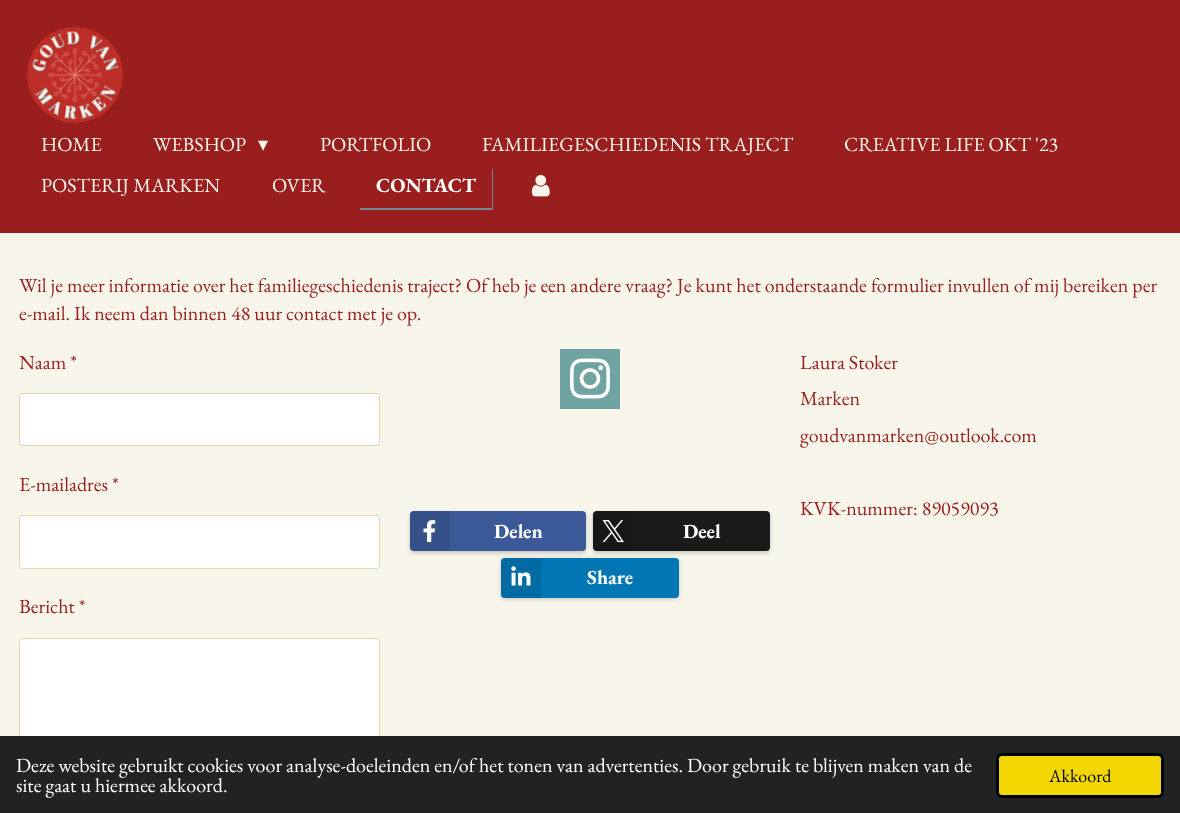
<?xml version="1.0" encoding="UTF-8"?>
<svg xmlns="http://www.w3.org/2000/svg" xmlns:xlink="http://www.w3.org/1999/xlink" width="1180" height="813">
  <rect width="100%" height="100%" fill="#9a1e1e" />
  <image x="26" y="26" width="98" height="98" xlink:href="image1.png" />
  <path d="M 360 208 v 2 h 133 v -41 h -1 v 39 z" fill="#728696" />
  <image x="531" y="175" width="19" height="22" xlink:href="image2.png" />
  <rect y="233" width="1180" height="503" fill="#f8f5eb" />
  <rect x="19" y="393" width="361" height="53" rx="2.5" fill="#ffffff" />
  <rect x="19.5" y="393.5" width="360" height="52" rx="2" fill="none" stroke="#cab367" stroke-opacity="0.5" />
  <rect x="19" y="515" width="361" height="54" rx="2.5" fill="#ffffff" />
  <rect x="19.5" y="515.5" width="360" height="53" rx="2" fill="none" stroke="#cab367" stroke-opacity="0.5" />
  <rect x="19" y="638" width="361" height="120" rx="2.5" fill="#ffffff" />
  <rect x="19.5" y="638.5" width="360" height="119" rx="2" fill="none" stroke="#cab367" stroke-opacity="0.5" />
  <rect x="560" y="349" width="60" height="60" fill="#70a4a2" />
  <image x="570" y="358" width="40" height="41" xlink:href="image3.png" />
  <rect x="410" y="513" width="176" height="40" rx="4" fill="#000000" fill-opacity="0.2" filter="blur(2px)" />
  <rect x="410" y="511" width="176" height="40" rx="4" fill="#3b5998" />
  <path d="M 414 511 h 36 v 40 h -36 c -2 0 -4 -2 -4 -4 v -32 c 0 -2 2 -4 4 -4 z" fill="#000000" fill-opacity="0.1" />
  <image x="423" y="520" width="13" height="23" xlink:href="image4.png" />
  <rect x="593" y="513" width="177" height="40" rx="4" fill="#000000" fill-opacity="0.2" filter="blur(2px)" />
  <rect x="593" y="511" width="177" height="40" rx="4" fill="#1a1a1a" />
  <path d="M 597 511 h 36 v 40 h -36 c -2 0 -4 -2 -4 -4 v -32 c 0 -2 2 -4 4 -4 z" fill="#000000" fill-opacity="0.1" />
  <image x="602" y="520" width="22" height="23" xlink:href="image5.png" />
  <rect x="501" y="559" width="178" height="40" rx="4" fill="#000000" fill-opacity="0.2" filter="blur(2px)" />
  <rect x="501" y="558" width="178" height="40" rx="4" fill="#0077b5" />
  <path d="M 505 558 h 36 v 40 h -36 c -2 0 -4 -2 -4 -4 v -32 c 0 -2 2 -4 4 -4 z" fill="#000000" fill-opacity="0.1" />
  <image x="511" y="566" width="20" height="20" xlink:href="image6.png" />
  <rect y="736" width="1180" height="77" fill="#222222" />
  <rect x="997.5" y="754.5" width="165" height="42" rx="4.5" fill="#f1d600" stroke="#000000" stroke-width="3" />
  <text x="41" y="151" style="font-family: EB Garamond; font-size: 20px; fill: #f8f5eb">HOME</text>
  <text x="153" y="151" style="font-family: EB Garamond; font-size: 20px; fill: #f8f5eb">WEBSHOP</text>
  <text x="258" y="151" style="font-family: DejaVu Sans; font-size: 20px; fill: #f8f5eb">▾</text>
  <text x="320" y="151" style="font-family: EB Garamond; font-size: 20px; fill: #f8f5eb">PORTFOLIO</text>
  <text x="482" y="151" style="font-family: EB Garamond; font-size: 20px; fill: #f8f5eb">FAMILIEGESCHIEDENIS TRAJECT</text>
  <text x="844" y="151" style="font-family: EB Garamond; font-size: 20px; fill: #f8f5eb">CREATIVE LIFE OKT '23</text>
  <text x="41" y="192" style="font-family: EB Garamond; font-size: 20px; fill: #f8f5eb">POSTERIJ MARKEN</text>
  <text x="272" y="192" style="font-family: EB Garamond; font-size: 20px; fill: #f8f5eb">OVER</text>
  <text x="376" y="192" style="font-family: EB Garamond; font-size: 20px; font-weight: bold; fill: #ffffff">CONTACT</text>
  <text x="19" y="292" style="font-family: EB Garamond; font-size: 20px; fill: #9a1e1e">Wil je meer informatie over het familiegeschiedenis traject? Of heb je een andere vraag? Je kunt het onderstaande formulier invullen of mij bereiken per</text>
  <text x="19" y="320" style="font-family: EB Garamond; font-size: 20px; fill: #9a1e1e">e-mail. Ik neem dan binnen 48 uur contact met je op.</text>
  <text x="19" y="369" style="font-family: EB Garamond; font-size: 20px; fill: #9a1e1e">Naam *</text>
  <text x="19" y="491" style="font-family: EB Garamond; font-size: 20px; fill: #9a1e1e">E-mailadres *</text>
  <text x="19" y="613" style="font-family: EB Garamond; font-size: 20px; fill: #9a1e1e">Bericht *</text>
  <text x="494" y="538" style="font-family: EB Garamond; font-size: 20px; font-weight: bold; fill: #ffffff">Delen</text>
  <text x="683" y="538" style="font-family: EB Garamond; font-size: 20px; font-weight: bold; fill: #ffffff">Deel</text>
  <text x="587" y="584" style="font-family: EB Garamond; font-size: 20px; font-weight: bold; fill: #ffffff">Share</text>
  <text x="800" y="369" style="font-family: EB Garamond; font-size: 20px; fill: #9a1e1e">Laura Stoker</text>
  <text x="800" y="405" style="font-family: EB Garamond; font-size: 20px; fill: #9a1e1e">Marken</text>
  <text x="800" y="442" style="font-family: EB Garamond; font-size: 20px; fill: #9a1e1e">goudvanmarken@outlook.com</text>
  <text x="800" y="515" style="font-family: EB Garamond; font-size: 20px; fill: #9a1e1e">KVK-nummer: 89059093</text>
  <text x="16" y="772" style="font-family: EB Garamond; font-size: 20px; fill: #ffffff">Deze website gebruikt cookies voor analyse-doeleinden en/of het tonen van advertenties. Door gebruik te blijven maken van de</text>
  <text x="16" y="792" style="font-family: EB Garamond; font-size: 20px; fill: #ffffff">site gaat u hiermee akkoord.</text>
  <text x="1049" y="782" style="font-family: EB Garamond; font-size: 18px; fill: #000000">Akkoord</text>
</svg>
